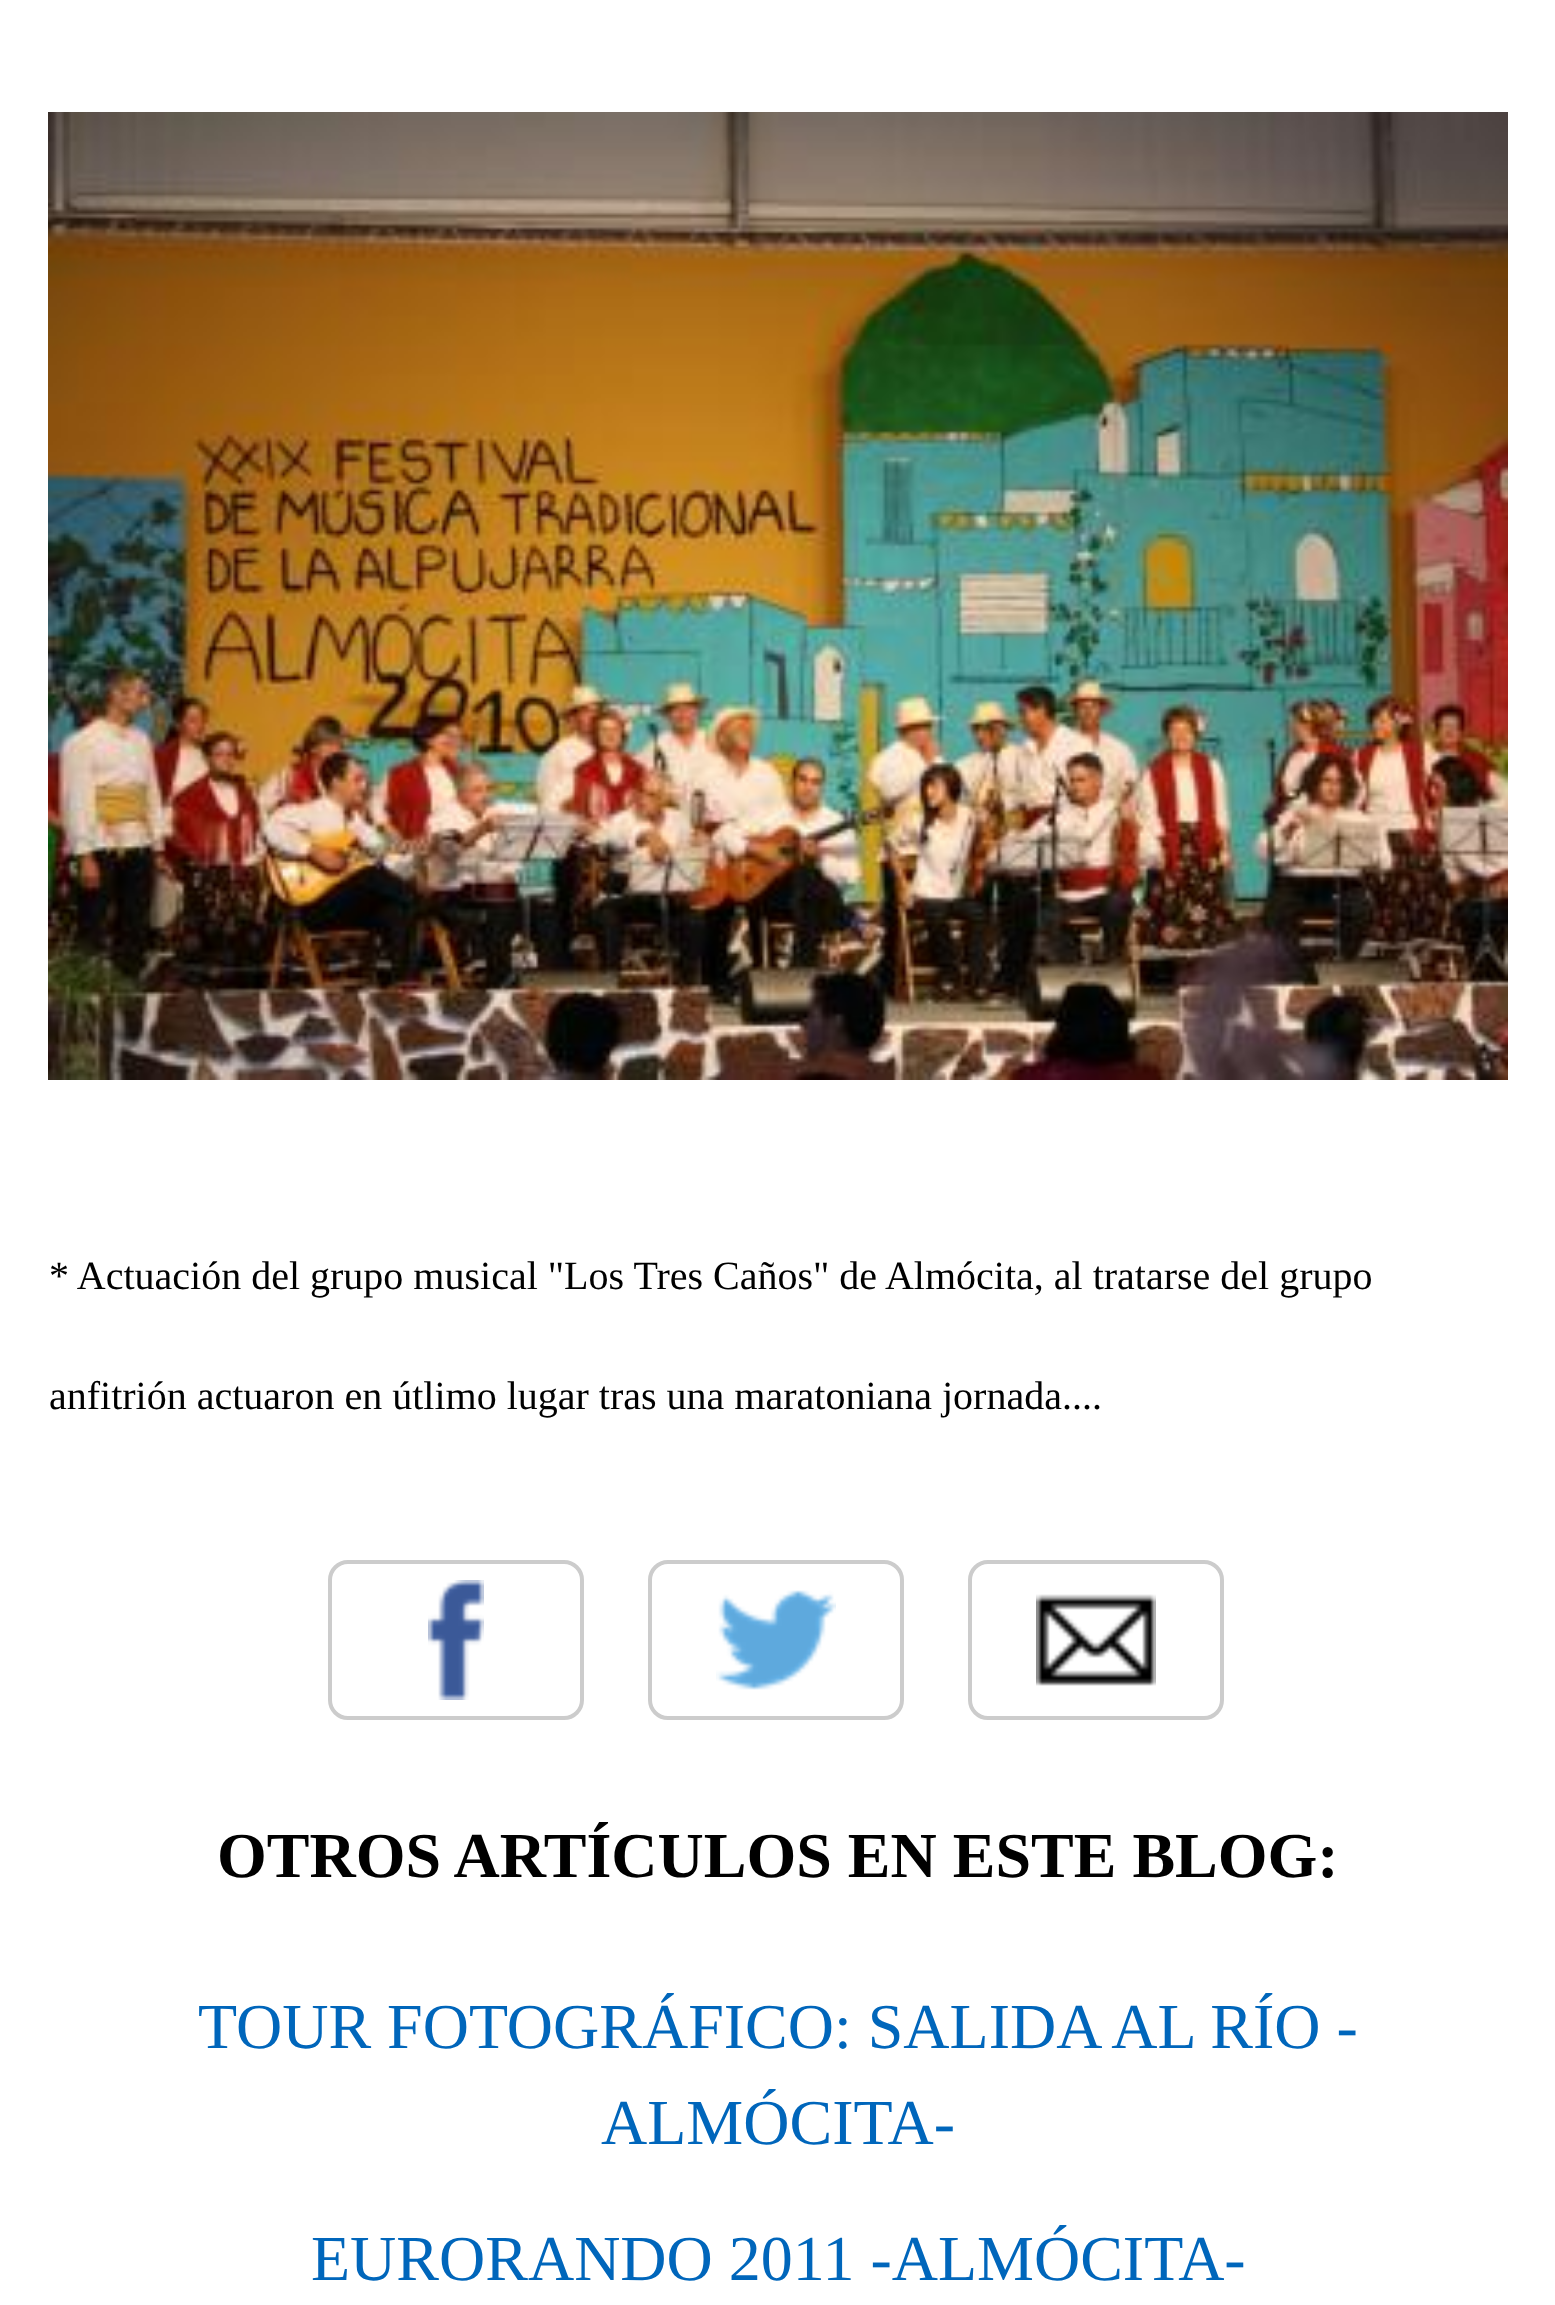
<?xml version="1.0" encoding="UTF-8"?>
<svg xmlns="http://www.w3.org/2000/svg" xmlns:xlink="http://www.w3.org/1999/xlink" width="1555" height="2305">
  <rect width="100%" height="100%" fill="#ffffff" />
  <image x="48" y="112" width="1460" height="968" xlink:href="image1.png" />
  <image x="428" y="1580" width="56" height="120" xlink:href="image2.png" />
  <rect x="330" y="1562" width="252" height="156" rx="18" fill="none" stroke="#cccccc" stroke-width="4" />
  <image x="716" y="1590" width="120" height="100" xlink:href="image3.png" />
  <rect x="650" y="1562" width="252" height="156" rx="18" fill="none" stroke="#cccccc" stroke-width="4" />
  <image x="1036" y="1594" width="120" height="92" xlink:href="image4.png" />
  <rect x="970" y="1562" width="252" height="156" rx="18" fill="none" stroke="#cccccc" stroke-width="4" />
  <text x="49" y="1289" style="font-family: Liberation Serif; font-size: 40px; fill: #000000">* Actuación del grupo musical "Los Tres Caños" de Almócita, al tratarse del grupo</text>
  <text x="49" y="1409" style="font-family: Liberation Serif; font-size: 40px; fill: #000000">anfitrión actuaron en útlimo lugar tras una maratoniana jornada....</text>
  <text x="217" y="1877" style="font-family: Liberation Serif; font-size: 64px; font-weight: bold; fill: #000000">OTROS ARTÍCULOS EN ESTE BLOG:</text>
  <text x="198" y="2048" style="font-family: Liberation Serif; font-size: 64px; fill: #0066bb">TOUR FOTOGRÁFICO: SALIDA AL RÍO -</text>
  <text x="601" y="2144" style="font-family: Liberation Serif; font-size: 64px; fill: #0066bb">ALMÓCITA-</text>
  <text x="311" y="2280" style="font-family: Liberation Serif; font-size: 64px; fill: #0066bb">EURORANDO 2011 -ALMÓCITA-</text>
</svg>
